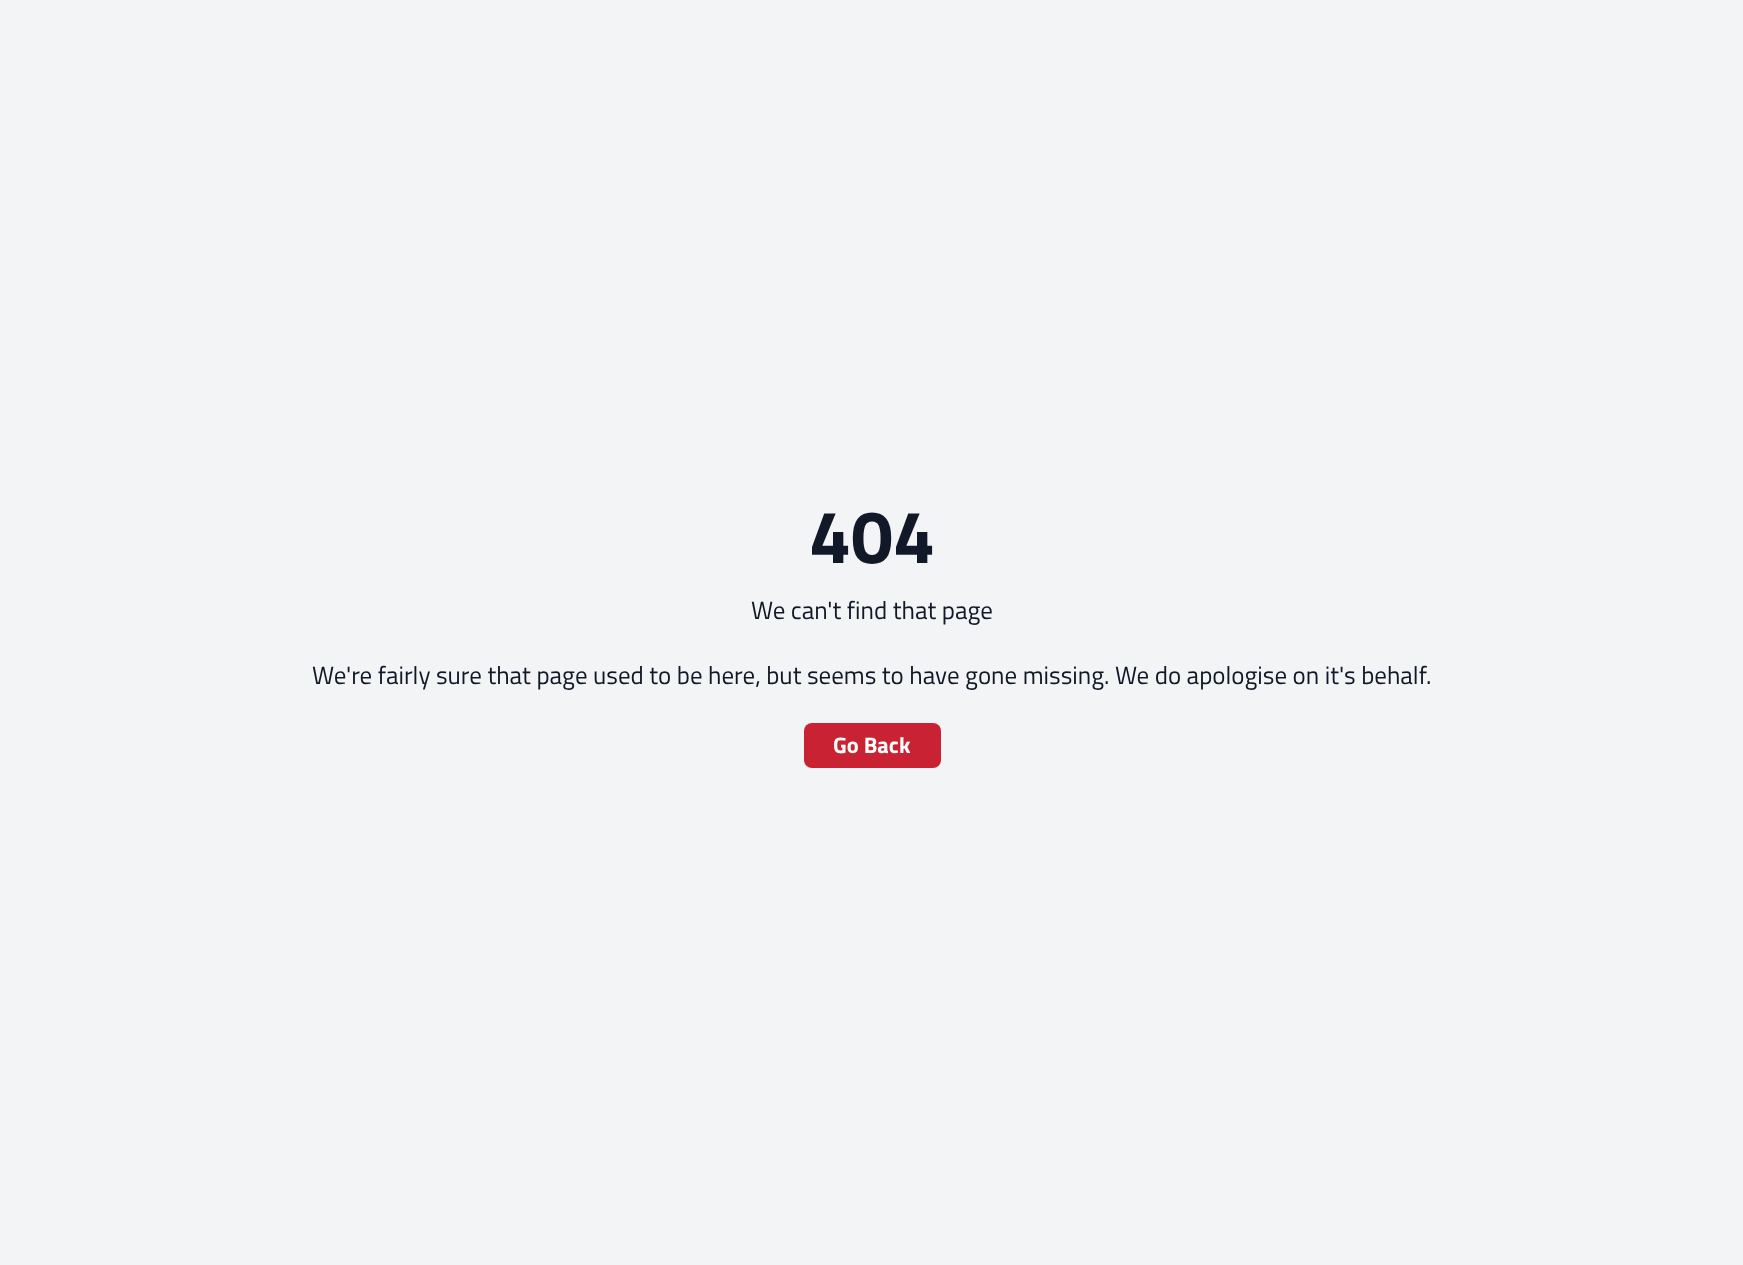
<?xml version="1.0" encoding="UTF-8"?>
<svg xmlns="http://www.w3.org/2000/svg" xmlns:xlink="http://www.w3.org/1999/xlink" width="1743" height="1265">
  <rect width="100%" height="100%" fill="#f3f4f6" />
  <rect x="804" y="723" width="137" height="45" rx="8" fill="#c92233" />
  <text x="809" y="563" style="font-family: Titillium Web; font-size: 75px; font-weight: bold; fill: #111827">404</text>
  <text x="751" y="619" style="font-family: Titillium Web; font-size: 25px; fill: #111827">We can't find that page</text>
  <text x="312" y="684" style="font-family: Titillium Web; font-size: 25px; fill: #111827">We're fairly sure that page used to be here, but seems to have gone missing. We do apologise on it's behalf.</text>
  <text x="833" y="753" style="font-family: Titillium Web; font-size: 22.5px; font-weight: bold; fill: #ffffff">Go Back</text>
</svg>
